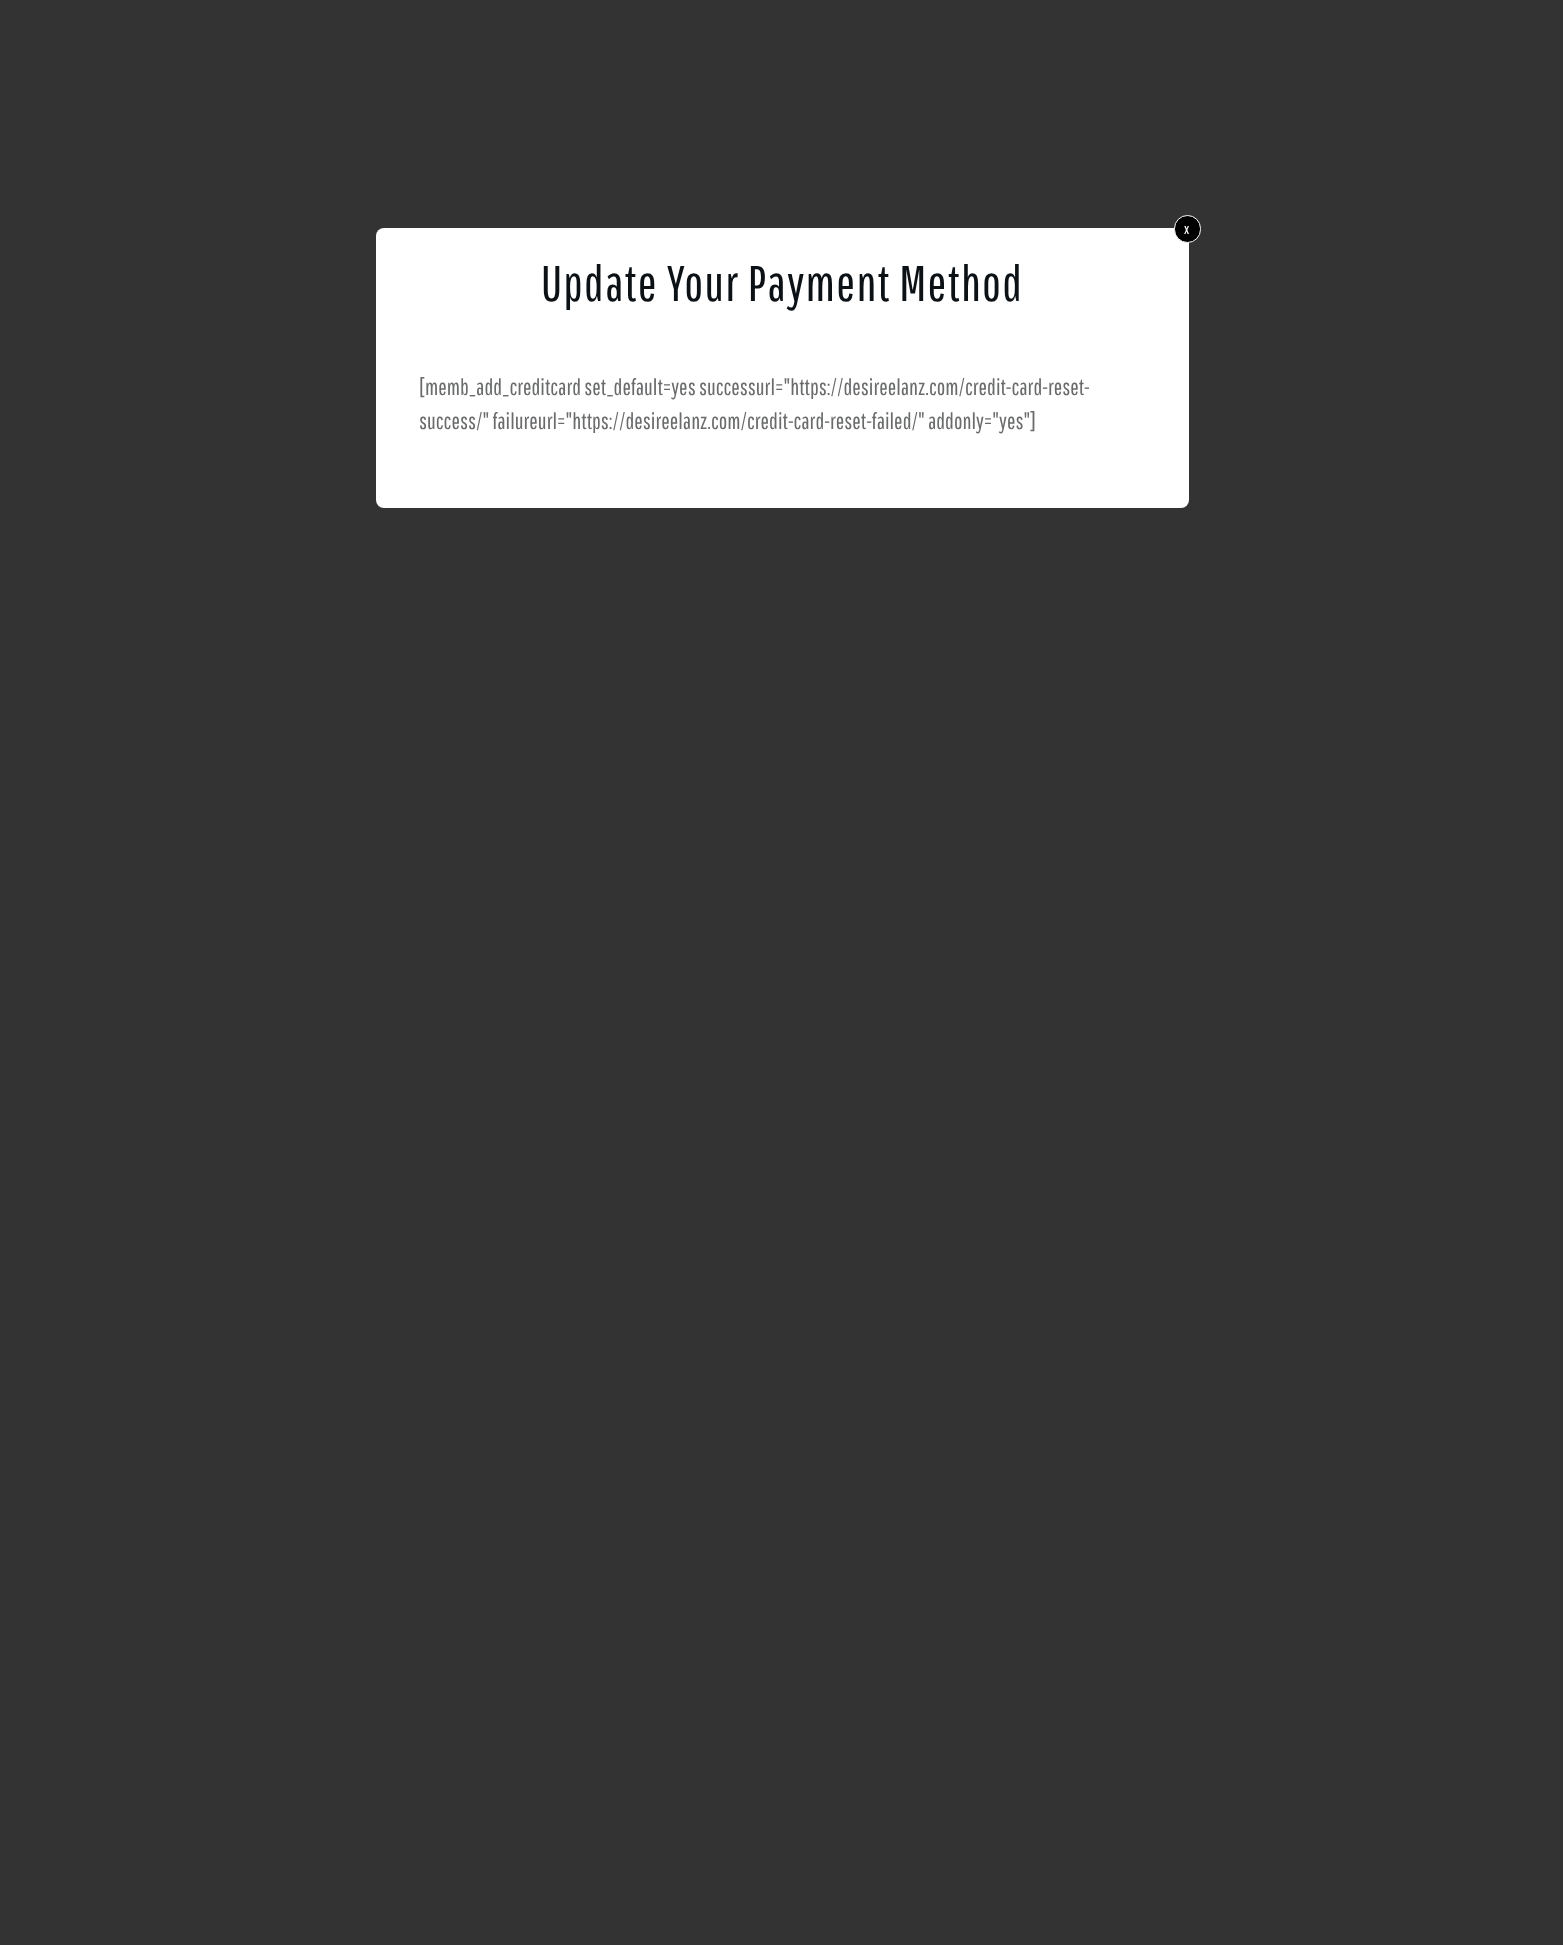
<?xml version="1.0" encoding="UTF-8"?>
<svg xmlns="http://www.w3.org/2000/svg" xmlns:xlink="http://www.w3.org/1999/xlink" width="1563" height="1945">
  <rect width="100%" height="100%" fill="#333333" />
  <rect x="376" y="228" width="813" height="280" rx="8" fill="#ffffff" />
  <rect x="1174.5" y="215.5" width="26" height="27" rx="13" fill="#000000" stroke="#ffffff" />
  <text x="1184" y="234" style="font-family: Pathway Gothic One; font-size: 15px; fill: #ffffff">x</text>
  <text x="541" y="301" style="font-family: Pathway Gothic One; font-size: 50px; letter-spacing: 1.25px; fill: #0c1115">Update Your Payment Method</text>
  <text x="419" y="395" style="font-family: Pathway Gothic One; font-size: 22.5px; fill: #6a6b6c">[memb_add_creditcard set_default=yes successurl="https://desireelanz.com/credit-card-reset-</text>
  <text x="419" y="429" style="font-family: Pathway Gothic One; font-size: 22.5px; fill: #6a6b6c">success/" failureurl="https://desireelanz.com/credit-card-reset-failed/" addonly="yes"]</text>
</svg>
